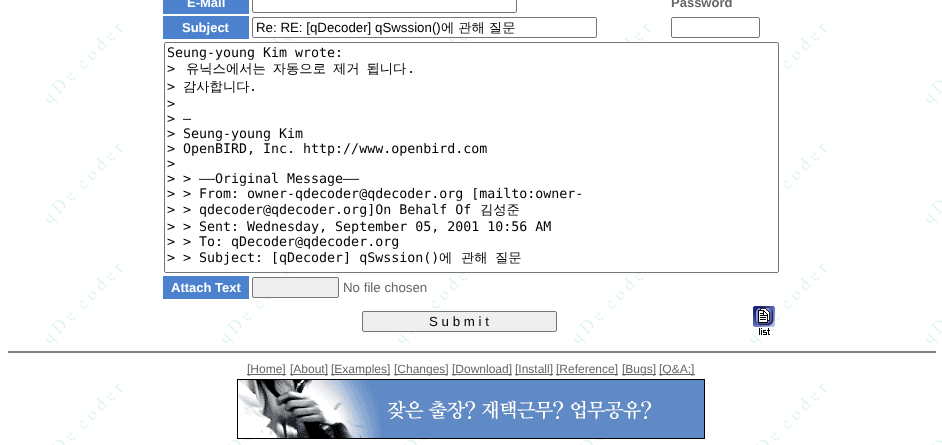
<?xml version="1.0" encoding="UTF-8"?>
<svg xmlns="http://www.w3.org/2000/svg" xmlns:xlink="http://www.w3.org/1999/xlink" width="942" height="445">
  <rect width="100%" height="100%" fill="#ffffff" />
  <image x="45" y="23" width="897" height="422" xlink:href="image1.png" />
  <rect x="163" width="86" height="14" fill="#4c81ce" />
  <rect x="252.5" y="-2.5" width="264" height="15" rx="1.5" fill="none" stroke="#767676" />
  <rect x="163" y="16" width="86" height="23" fill="#4c81ce" />
  <rect x="252.5" y="17.5" width="344" height="20" rx="1.5" fill="#ffffff" stroke="#767676" />
  <rect x="671.5" y="17.5" width="88" height="20" rx="1.5" fill="none" stroke="#767676" />
  <rect x="164.5" y="42.5" width="614" height="230" rx="1.5" fill="#ffffff" stroke="#767676" />
  <rect x="163" y="276" width="86" height="23" fill="#4c81ce" />
  <rect x="252.5" y="277.5" width="86" height="20" rx="1.5" fill="#efefef" stroke="#767676" />
  <rect x="362.5" y="311.5" width="194" height="20" rx="1.5" fill="#efefef" stroke="#767676" />
  <image x="753" y="306" width="22" height="29" xlink:href="image2.png" />
  <rect x="8" y="351" width="928" height="2" fill="#808080" />
  <rect x="247" y="374" width="39" height="1" fill="#666666" />
  <rect x="290" y="374" width="38" height="1" fill="#666666" />
  <rect x="331" y="374" width="59" height="1" fill="#666666" />
  <rect x="394" y="374" width="54" height="1" fill="#666666" />
  <rect x="452" y="374" width="60" height="1" fill="#666666" />
  <rect x="515" y="374" width="38" height="1" fill="#666666" />
  <rect x="556" y="374" width="62" height="1" fill="#666666" />
  <rect x="622" y="374" width="34" height="1" fill="#666666" />
  <rect x="659" y="374" width="36" height="1" fill="#666666" />
  <image x="237" y="379" width="468" height="60" xlink:href="image3.png" />
  <text x="187" y="7" style="font-family: Liberation Sans; font-size: 13px; font-weight: bold; fill: #ffffff">E-Mail</text>
  <text x="671" y="7" style="font-family: Liberation Sans; font-size: 13px; font-weight: bold; fill: #666666">Password</text>
  <text x="182" y="32" style="font-family: Liberation Sans; font-size: 13px; font-weight: bold; fill: #ffffff">Subject</text>
  <text x="256" y="32" style="font-family: Liberation Sans; font-size: 13.3px; fill: #000000">Re: RE: [qDecoder] qSwssion()</text>
  <text x="441" y="32" style="font-family: WenQuanYi Zen Hei; font-size: 13.3px; font-weight: 500; fill: #000000">에 관해 질문</text>
  <text x="167" y="57" style="font-family: DejaVu Sans Mono; font-size: 13.3px; fill: #000000">Seung-young Kim wrote:</text>
  <text x="167" y="73" style="font-family: DejaVu Sans Mono; font-size: 13.3px; fill: #000000">&gt;</text>
  <text x="186" y="73" word-spacing="3" style="font-family: WenQuanYi Zen Hei; font-size: 13.3px; font-weight: 500; fill: #000000">유닉스에서는 자동으로 제거 됩니다</text>
  <text x="407" y="73" style="font-family: DejaVu Sans Mono; font-size: 13.3px; fill: #000000">.</text>
  <text x="167" y="91" style="font-family: DejaVu Sans Mono; font-size: 13.3px; fill: #000000">&gt;</text>
  <text x="183" y="91" style="font-family: WenQuanYi Zen Hei; font-size: 13.3px; font-weight: 500; fill: #000000">감사합니다</text>
  <text x="249" y="91" style="font-family: DejaVu Sans Mono; font-size: 13.3px; fill: #000000">.</text>
  <text x="167" y="108" style="font-family: DejaVu Sans Mono; font-size: 13.3px; fill: #000000">&gt;</text>
  <text x="167" y="123" style="font-family: DejaVu Sans Mono; font-size: 13.3px; fill: #000000">&gt; —</text>
  <text x="167" y="138" style="font-family: DejaVu Sans Mono; font-size: 13.3px; fill: #000000">&gt; Seung-young Kim</text>
  <text x="167" y="153" style="font-family: DejaVu Sans Mono; font-size: 13.3px; fill: #000000">&gt; OpenBIRD, Inc. http://www.openbird.com</text>
  <text x="167" y="168" style="font-family: DejaVu Sans Mono; font-size: 13.3px; fill: #000000">&gt;</text>
  <text x="167" y="183" style="font-family: DejaVu Sans Mono; font-size: 13.3px; fill: #000000">&gt; &gt; —–Original Message—–</text>
  <text x="167" y="198" style="font-family: DejaVu Sans Mono; font-size: 13.3px; fill: #000000">&gt; &gt; From: owner-qdecoder@qdecoder.org [mailto:owner-</text>
  <text x="167" y="214" style="font-family: DejaVu Sans Mono; font-size: 13.3px; fill: #000000">&gt; &gt; qdecoder@qdecoder.org]On Behalf Of</text>
  <text x="480" y="214" style="font-family: WenQuanYi Zen Hei; font-size: 13.3px; font-weight: 500; fill: #000000">김성준</text>
  <text x="167" y="231" style="font-family: DejaVu Sans Mono; font-size: 13.3px; fill: #000000">&gt; &gt; Sent: Wednesday, September 05, 2001 10:56 AM</text>
  <text x="167" y="246" style="font-family: DejaVu Sans Mono; font-size: 13.3px; fill: #000000">&gt; &gt; To: qDecoder@qdecoder.org</text>
  <text x="167" y="262" style="font-family: DejaVu Sans Mono; font-size: 13.3px; fill: #000000">&gt; &gt; Subject: [qDecoder] qSwssion()</text>
  <text x="439" y="262" style="font-family: WenQuanYi Zen Hei; font-size: 13.3px; font-weight: 500; fill: #000000">에</text>
  <text x="461" y="262" style="font-family: WenQuanYi Zen Hei; font-size: 13.3px; font-weight: 500; fill: #000000">관해</text>
  <text x="495" y="262" style="font-family: WenQuanYi Zen Hei; font-size: 13.3px; font-weight: 500; fill: #000000">질문</text>
  <text x="171" y="292" style="font-family: Liberation Sans; font-size: 13px; font-weight: bold; fill: #ffffff">Attach Text</text>
  <text x="343" y="292" style="font-family: Liberation Sans; font-size: 13.3px; fill: #666666">No file chosen</text>
  <text x="429" y="326" style="font-family: Liberation Sans; font-size: 13.3px; fill: #000000">S u b m i t</text>
  <text x="247" y="373" style="font-family: Liberation Sans; font-size: 12px; fill: #666666">[Home]</text>
  <text x="290" y="373" style="font-family: Liberation Sans; font-size: 12px; fill: #666666">[About]</text>
  <text x="331" y="373" style="font-family: Liberation Sans; font-size: 12px; fill: #666666">[Examples]</text>
  <text x="394" y="373" style="font-family: Liberation Sans; font-size: 12px; fill: #666666">[Changes]</text>
  <text x="452" y="373" style="font-family: Liberation Sans; font-size: 12px; fill: #666666">[Download]</text>
  <text x="515" y="373" style="font-family: Liberation Sans; font-size: 12px; fill: #666666">[Install]</text>
  <text x="556" y="373" style="font-family: Liberation Sans; font-size: 12px; fill: #666666">[Reference]</text>
  <text x="622" y="373" style="font-family: Liberation Sans; font-size: 12px; fill: #666666">[Bugs]</text>
  <text x="659" y="373" style="font-family: Liberation Sans; font-size: 12px; fill: #666666">[Q&amp;A;]</text>
</svg>
